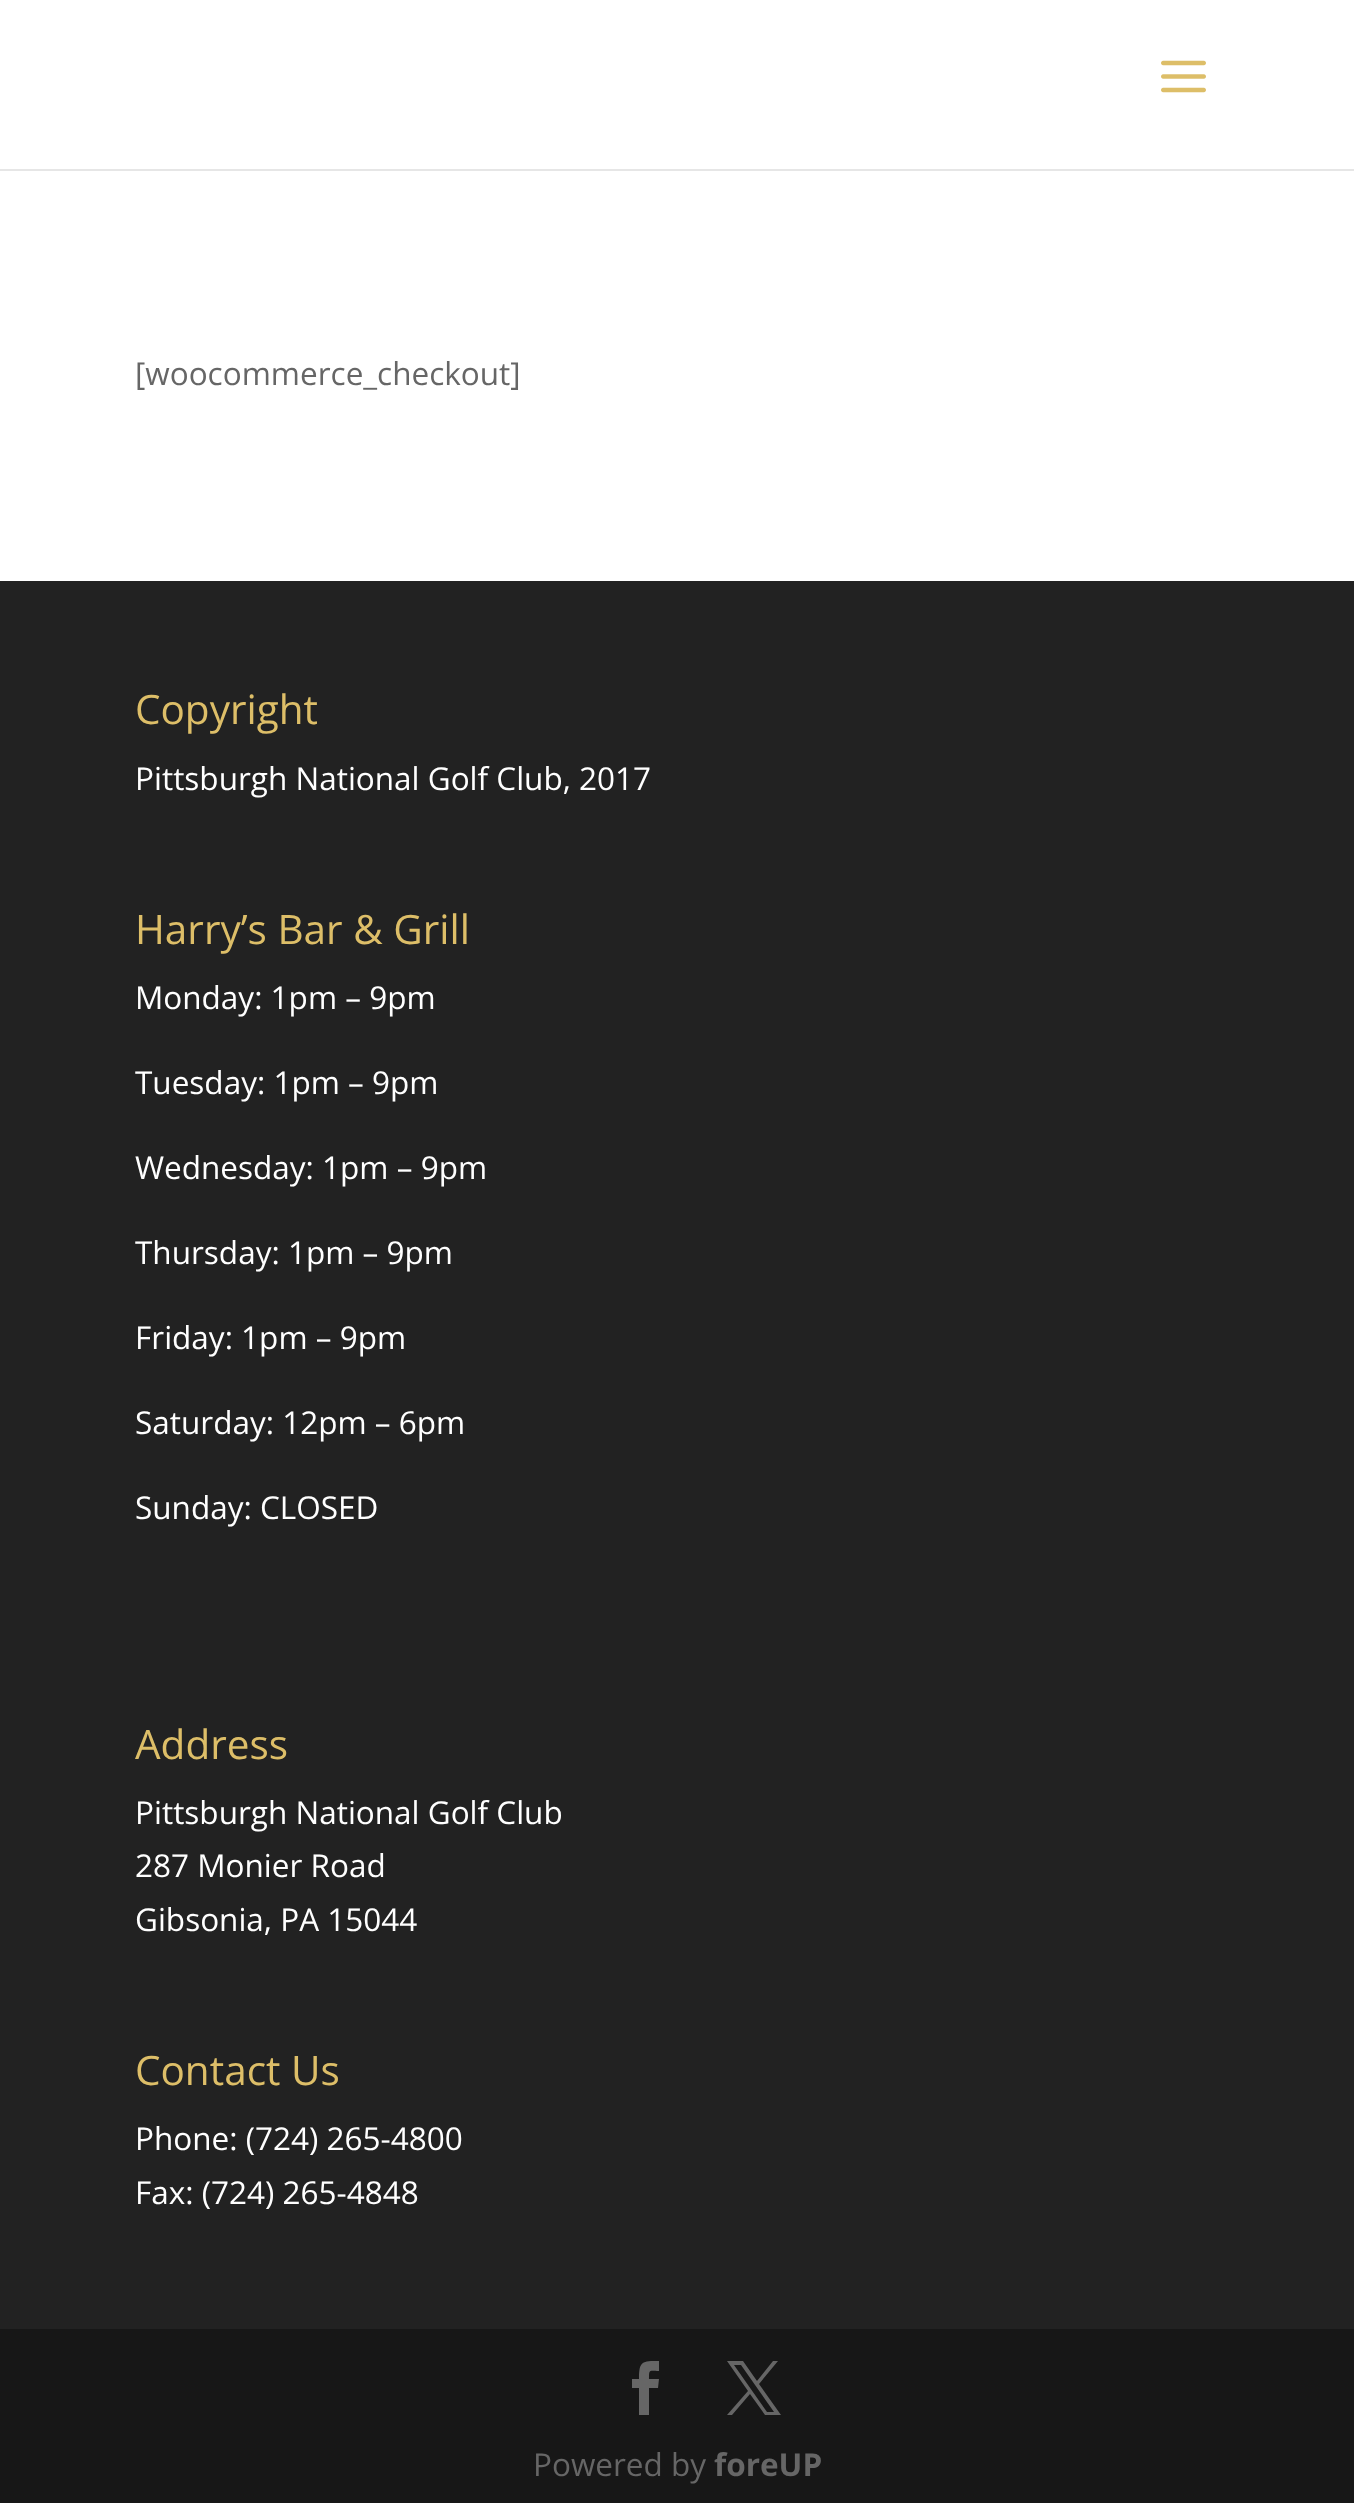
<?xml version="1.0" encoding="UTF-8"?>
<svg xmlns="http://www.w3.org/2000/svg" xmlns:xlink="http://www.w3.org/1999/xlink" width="1354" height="2503">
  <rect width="100%" height="100%" fill="#ffffff" />
  <path d="M 0 169 v 2 h 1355 v -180 h -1 v 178 z" fill="#e6e6e6" />
  <image x="1161" y="60" width="45" height="33" xlink:href="image1.png" />
  <rect y="581" width="1354" height="1748" fill="#222222" />
  <rect y="2329" width="1354" height="174" fill="#171717" />
  <path d="M 639 2415 h 10 v -27 h 9 l 1 -9 h -10 c 0 -10 0 -8 10 -8 v -10 c -17 0 -20 0 -20 18 h -7 v 9 h 7 z" fill="#666666" />
  <path d="M 727 2361 l 21 30 l -21 24 h 5 l 18 -21 l 15 21 h 16 l -22 -31 l 19 -23 h -5 l -16 20 l -14 -20 z m 7 4 h 7 l 33 47 h -7 z" fill="#666666" />
  <text x="135" y="385" style="font-family: Open Sans; font-size: 31.5px; fill: #666666">[woocommerce_checkout]</text>
  <text x="135" y="724" style="font-family: Open Sans; font-size: 40.5px; fill: #ddbe68">Copyright</text>
  <text x="135" y="790" style="font-family: Open Sans; font-size: 31.5px; fill: #ffffff">Pittsburgh National Golf Club, 2017</text>
  <text x="135" y="944" style="font-family: Open Sans; font-size: 40.5px; fill: #ddbe68">Harry’s Bar &amp; Grill</text>
  <text x="135" y="1009" style="font-family: Open Sans; font-size: 31.5px; fill: #ffffff">Monday: 1pm – 9pm</text>
  <text x="135" y="1094" style="font-family: Open Sans; font-size: 31.5px; fill: #ffffff">Tuesday: 1pm – 9pm</text>
  <text x="135" y="1179" style="font-family: Open Sans; font-size: 31.5px; fill: #ffffff">Wednesday: 1pm – 9pm</text>
  <text x="135" y="1264" style="font-family: Open Sans; font-size: 31.5px; fill: #ffffff">Thursday: 1pm – 9pm</text>
  <text x="135" y="1349" style="font-family: Open Sans; font-size: 31.5px; fill: #ffffff">Friday: 1pm – 9pm</text>
  <text x="135" y="1434" style="font-family: Open Sans; font-size: 31.5px; fill: #ffffff">Saturday: 12pm – 6pm</text>
  <text x="135" y="1519" style="font-family: Open Sans; font-size: 31.5px; fill: #ffffff">Sunday: CLOSED</text>
  <text x="135" y="1759" style="font-family: Open Sans; font-size: 40.5px; fill: #ddbe68">Address</text>
  <text x="135" y="1824" style="font-family: Open Sans; font-size: 31.5px; fill: #ffffff">Pittsburgh National Golf Club</text>
  <text x="135" y="1877" style="font-family: Open Sans; font-size: 31.5px; fill: #ffffff">287 Monier Road</text>
  <text x="135" y="1931" style="font-family: Open Sans; font-size: 31.5px; fill: #ffffff">Gibsonia, PA 15044</text>
  <text x="135" y="2085" style="font-family: Open Sans; font-size: 40.5px; fill: #ddbe68">Contact Us</text>
  <text x="135" y="2150" style="font-family: Open Sans; font-size: 31.5px; fill: #ffffff">Phone: (724) 265-4800</text>
  <text x="135" y="2204" style="font-family: Open Sans; font-size: 31.5px; fill: #ffffff">Fax: (724) 265-4848</text>
  <text x="533" y="2476" style="font-family: Open Sans; font-size: 31.5px; fill: #666666">Powered by</text>
  <text x="714" y="2476" style="font-family: Open Sans; font-size: 31.5px; font-weight: bold; fill: #666666">foreUP</text>
</svg>
